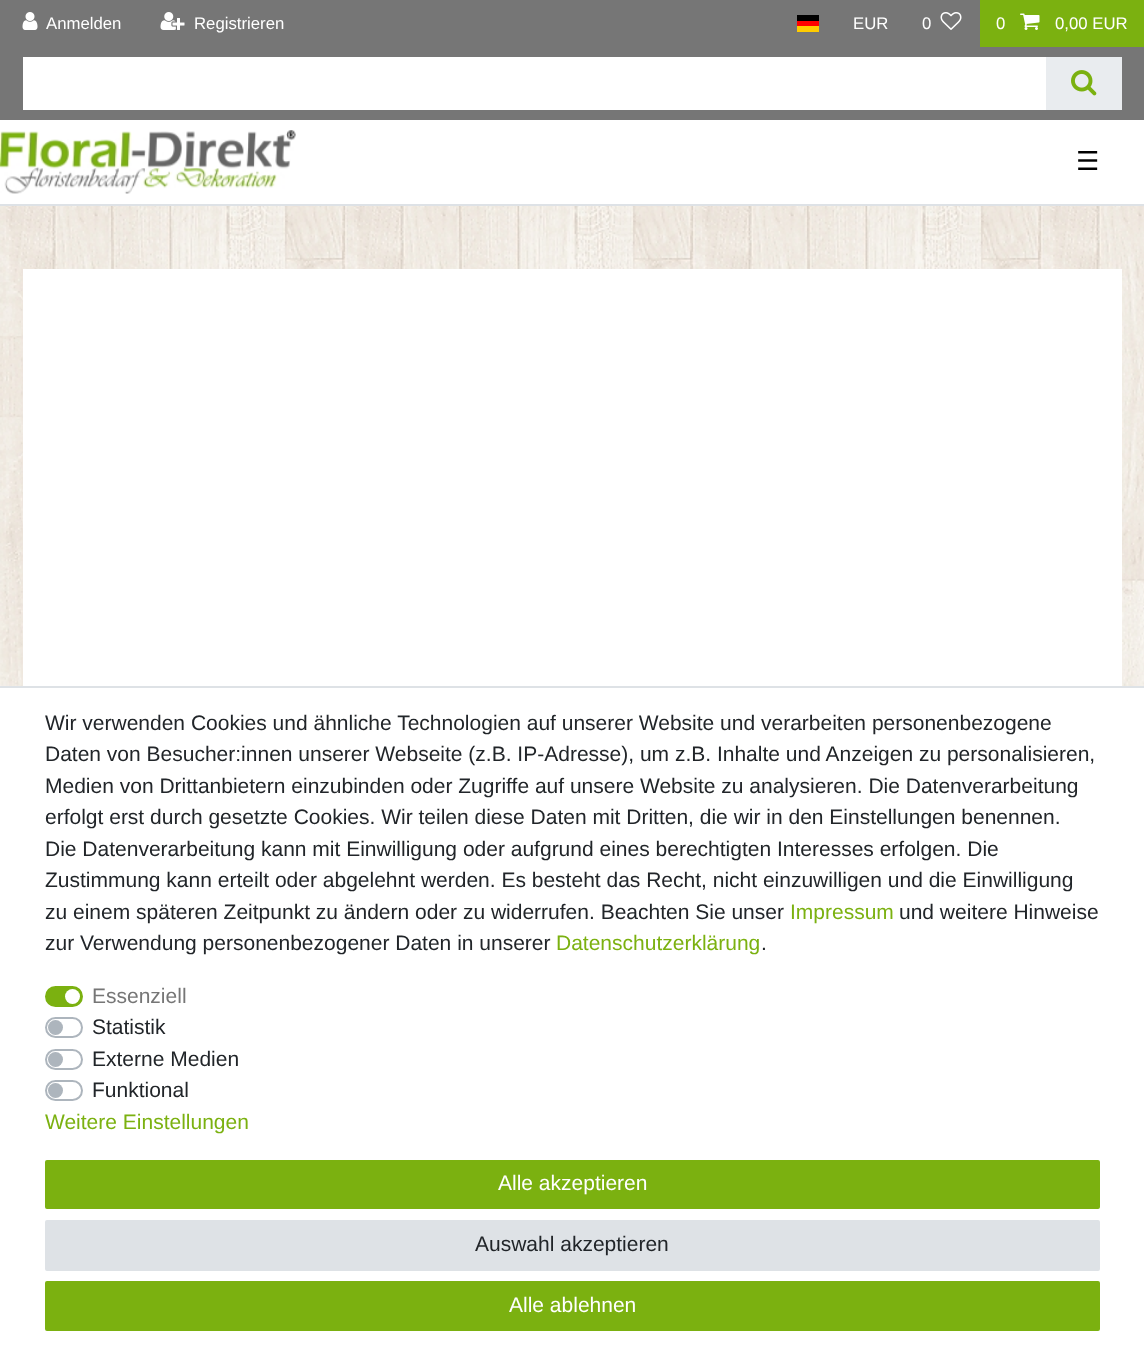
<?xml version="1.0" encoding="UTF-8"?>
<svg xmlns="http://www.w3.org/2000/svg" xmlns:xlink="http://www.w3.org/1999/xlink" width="1144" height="1361">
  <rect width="100%" height="100%" fill="#ffffff" />
  <image x="0" y="206" width="1144" height="480" xlink:href="image1.png" />
  <rect width="1144" height="120" fill="#767676" />
  <image x="22" y="12" width="16" height="18" xlink:href="image2.png" />
  <image x="160" y="12" width="25" height="18" xlink:href="image3.png" />
  <rect x="797" y="26" width="22" height="6" fill="#ffcc00" />
  <rect x="797" y="15" width="22" height="6" fill="#000000" />
  <rect x="797" y="21" width="22" height="5" fill="#ff0000" />
  <image x="940" y="12" width="22" height="18" xlink:href="image4.png" />
  <rect x="980" width="164" height="47" fill="#7bb110" />
  <image x="1020" y="13" width="20" height="17" xlink:href="image5.png" />
  <rect x="23" y="57" width="1023" height="53" fill="#ffffff" />
  <rect x="1046" y="57" width="76" height="53" fill="#e9ecef" />
  <image x="1071" y="70" width="26" height="26" xlink:href="image6.png" />
  <rect y="204" width="1144" height="2" fill="#dee2e6" />
  <image x="0" y="130" width="296" height="64" xlink:href="image7.png" />
  <rect x="23" y="269" width="1099" height="417" fill="#ffffff" />
  <rect y="686" width="1144" height="2" fill="#dee2e6" />
  <rect x="46" y="987" width="36" height="19" rx="9.5" fill="#7bb110" stroke="#7bb110" stroke-width="2" />
  <circle cx="72.5" cy="996.5" r="7.5" fill="#ffffff" />
  <rect x="46" y="1018" width="36" height="19" rx="9.5" fill="none" stroke="#adb5bd" stroke-width="2" />
  <circle cx="55.5" cy="1027.5" r="7.5" fill="#adb5bd" />
  <rect x="46" y="1050" width="36" height="19" rx="9.5" fill="none" stroke="#adb5bd" stroke-width="2" />
  <circle cx="55.5" cy="1059.5" r="7.5" fill="#adb5bd" />
  <rect x="46" y="1081" width="36" height="19" rx="9.5" fill="none" stroke="#adb5bd" stroke-width="2" />
  <circle cx="55.5" cy="1090.5" r="7.5" fill="#adb5bd" />
  <rect x="46" y="1161" width="1053" height="47" rx="1" fill="#7bb110" stroke="#7bb110" stroke-width="2" />
  <rect x="46" y="1221" width="1053" height="49" rx="1" fill="#dee2e6" stroke="#dee2e6" stroke-width="2" />
  <rect x="46" y="1282" width="1053" height="48" rx="1" fill="#7bb110" stroke="#7bb110" stroke-width="2" />
  <text x="46" y="29" style="font-family: Liberation Sans; font-size: 16.75px; fill: #ffffff">Anmelden</text>
  <text x="194" y="29" style="font-family: Liberation Sans; font-size: 16.75px; fill: #ffffff">Registrieren</text>
  <text x="853" y="29" style="font-family: Liberation Sans; font-size: 16.75px; fill: #ffffff">EUR</text>
  <text x="922" y="29" style="font-family: Liberation Sans; font-size: 16.75px; fill: #ffffff">0</text>
  <text x="996" y="29" style="font-family: Liberation Sans; font-size: 16.75px; fill: #ffffff">0</text>
  <text x="1055" y="29" style="font-family: Liberation Sans; font-size: 16.75px; fill: #ffffff">0,00 EUR</text>
  <text x="1076" y="170" style="font-family: DejaVu Sans; font-size: 26px; fill: #000000">☰</text>
  <text x="45" y="730" style="font-family: Liberation Sans; font-size: 21px; fill: #212529">Wir verwenden Cookies und ähnliche Technologien auf unserer Website und verarbeiten personenbezogene</text>
  <text x="45" y="761" style="font-family: Liberation Sans; font-size: 21px; fill: #212529">Daten von Besucher:innen unserer Webseite (z.B. IP-Adresse), um z.B. Inhalte und Anzeigen zu personalisieren,</text>
  <text x="45" y="793" style="font-family: Liberation Sans; font-size: 21px; fill: #212529">Medien von Drittanbietern einzubinden oder Zugriffe auf unsere Website zu analysieren. Die Datenverarbeitung</text>
  <text x="45" y="824" style="font-family: Liberation Sans; font-size: 21px; fill: #212529">erfolgt erst durch gesetzte Cookies. Wir teilen diese Daten mit Dritten, die wir in den Einstellungen benennen.</text>
  <text x="45" y="856" style="font-family: Liberation Sans; font-size: 21px; fill: #212529">Die Datenverarbeitung kann mit Einwilligung oder aufgrund eines berechtigten Interesses erfolgen. Die</text>
  <text x="45" y="887" style="font-family: Liberation Sans; font-size: 21px; fill: #212529">Zustimmung kann erteilt oder abgelehnt werden. Es besteht das Recht, nicht einzuwilligen und die Einwilligung</text>
  <text x="45" y="919" style="font-family: Liberation Sans; font-size: 21px; fill: #212529">zu einem späteren Zeitpunkt zu ändern oder zu widerrufen. Beachten Sie unser</text>
  <text x="790" y="919" style="font-family: Liberation Sans; font-size: 21px; fill: #7bb110">Impressum</text>
  <text x="899" y="919" style="font-family: Liberation Sans; font-size: 21px; fill: #212529">und weitere Hinweise</text>
  <text x="45" y="950" style="font-family: Liberation Sans; font-size: 21px; fill: #212529">zur Verwendung personenbezogener Daten in unserer</text>
  <text x="556" y="950" style="font-family: Liberation Sans; font-size: 21px; fill: #7bb110">Datenschutzerklärung</text>
  <text x="761" y="950" style="font-family: Liberation Sans; font-size: 21px; fill: #212529">.</text>
  <text x="92" y="1003" style="font-family: Liberation Sans; font-size: 21px; fill: #767676">Essenziell</text>
  <text x="92" y="1034" style="font-family: Liberation Sans; font-size: 21px; fill: #212529">Statistik</text>
  <text x="92" y="1066" style="font-family: Liberation Sans; font-size: 21px; fill: #212529">Externe Medien</text>
  <text x="92" y="1097" style="font-family: Liberation Sans; font-size: 21px; fill: #212529">Funktional</text>
  <text x="45" y="1129" style="font-family: Liberation Sans; font-size: 21px; fill: #7bb110">Weitere Einstellungen</text>
  <text x="498" y="1190" style="font-family: Liberation Sans; font-size: 21px; fill: #ffffff">Alle akzeptieren</text>
  <text x="475" y="1251" style="font-family: Liberation Sans; font-size: 21px; fill: #212529">Auswahl akzeptieren</text>
  <text x="509" y="1312" style="font-family: Liberation Sans; font-size: 21px; fill: #ffffff">Alle ablehnen</text>
</svg>
